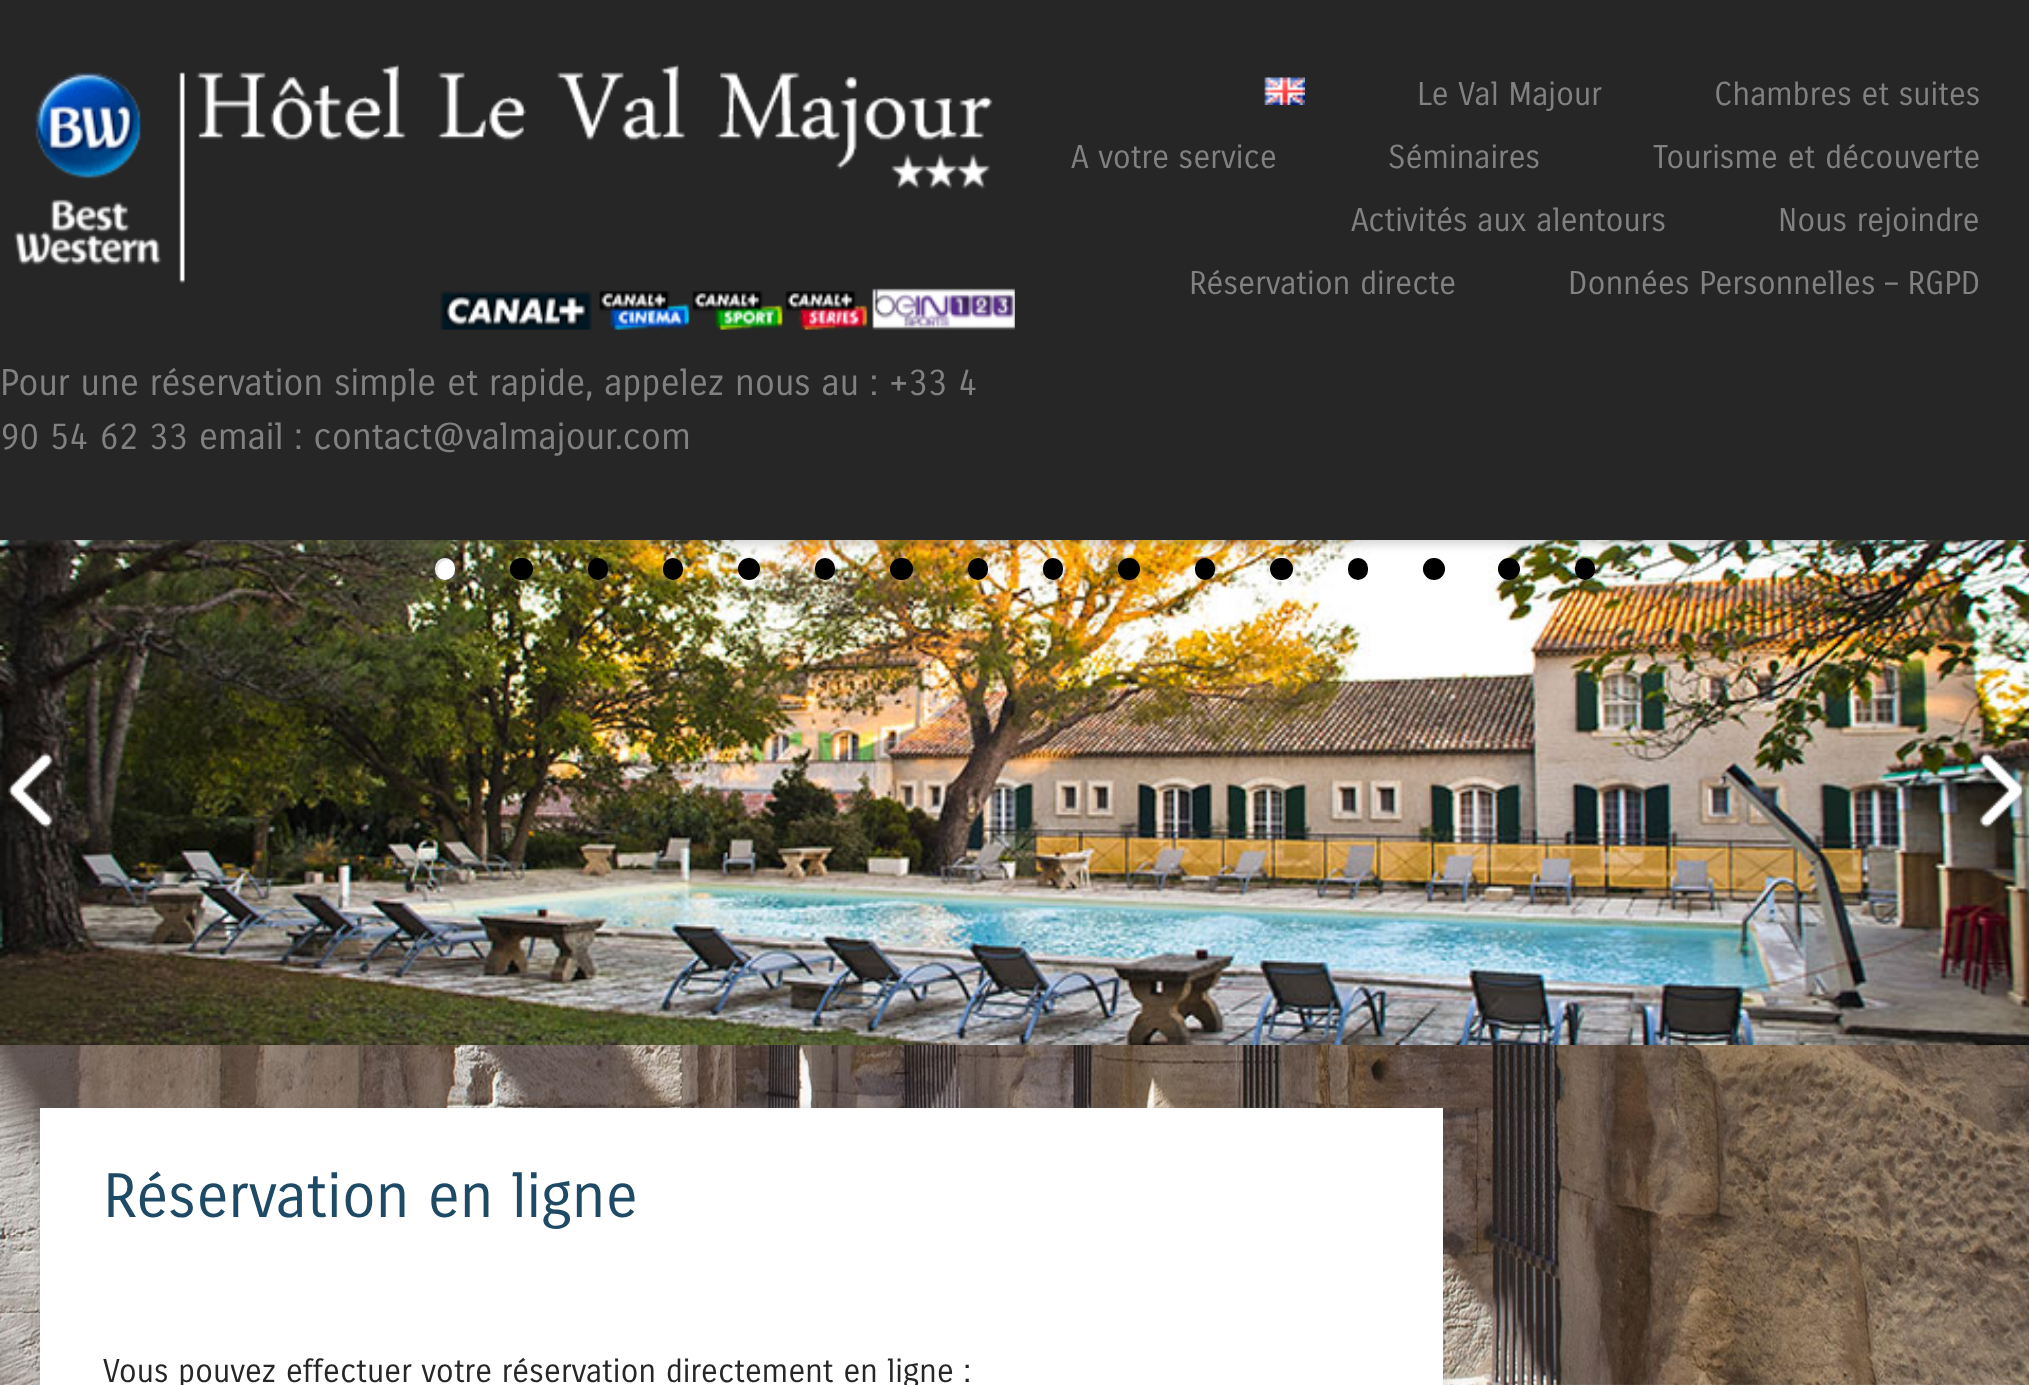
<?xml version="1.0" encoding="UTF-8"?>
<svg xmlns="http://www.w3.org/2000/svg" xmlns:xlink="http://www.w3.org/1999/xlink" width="2029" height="1385">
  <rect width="100%" height="100%" fill="#ffffff" />
  <image x="0" y="1045" width="2029" height="340" xlink:href="image1.png" />
  <image x="0" y="540" width="2029" height="505" xlink:href="image4.png" />
  <rect x="513" y="560" width="22" height="23" rx="11" fill="#ffffff" fill-opacity="0.1" filter="blur(1px)" />
  <rect x="510" y="558" width="23" height="22" rx="11" fill="#000000" />
  <path d="M 524 560 c 2.5 0 4.5 0.5 6 1.5 c -4 -4.5 -12.5 -5 -17 -0.5 c -5 5.5 -3.5 14 2.5 17.5 c -5.5 -6 -3 -18.5 8.5 -18.5 z" fill="#000000" fill-opacity="0.1" />
  <rect x="590" y="560" width="20" height="23" rx="10" fill="#ffffff" fill-opacity="0.1" filter="blur(1px)" />
  <rect x="588" y="558" width="20" height="22" rx="10" fill="#000000" />
  <path d="M 600 560 c 2.5 0 4.5 1 6 2 c -4 -5.5 -12.5 -5.5 -16.5 0.5 c -3 5 -2 12.5 3 16 c -4.5 -6.5 -2 -18.5 7.5 -18.5 z" fill="#000000" fill-opacity="0.1" />
  <rect x="665" y="560" width="20" height="23" rx="10" fill="#ffffff" fill-opacity="0.1" filter="blur(1px)" />
  <rect x="663" y="558" width="20" height="22" rx="10" fill="#000000" />
  <path d="M 675 560 c 2.5 0 4.5 1 6 2 c -4 -5.5 -12.5 -5.5 -16.5 0.5 c -3 5 -2 12.5 3 16 c -4.5 -6.5 -2 -18.5 7.5 -18.5 z" fill="#000000" fill-opacity="0.1" />
  <rect x="740" y="560" width="23" height="23" rx="11.5" fill="#ffffff" fill-opacity="0.1" filter="blur(1px)" />
  <circle cx="749" cy="569" r="11" fill="#000000" />
  <path d="M 751 560 c 2.5 0 4.5 0.5 6 1.5 c -10 -11 -26.5 5 -15.5 15.5 c -4 -6.5 -1 -17 9.5 -17 z" fill="#000000" fill-opacity="0.1" />
  <rect x="893" y="560" width="22" height="23" rx="11" fill="#ffffff" fill-opacity="0.1" filter="blur(1px)" />
  <rect x="890" y="558" width="23" height="22" rx="11" fill="#000000" />
  <path d="M 904 560 c 2.5 0 4.5 0.5 6 1.5 c -4 -4.5 -12.5 -5 -17 -0.5 c -5 5.5 -3.5 14 2.5 17.5 c -5.5 -6 -3 -18.5 8.5 -18.5 z" fill="#000000" fill-opacity="0.1" />
  <rect x="970" y="560" width="20" height="23" rx="10" fill="#ffffff" fill-opacity="0.1" filter="blur(1px)" />
  <rect x="968" y="558" width="20" height="22" rx="10" fill="#000000" />
  <path d="M 980 560 c 2.5 0 4.5 1 6 2 c -4 -5.5 -12.5 -5.5 -16.5 0.5 c -3 5 -2 12.5 3 16 c -4.5 -6.5 -2 -18.5 7.5 -18.5 z" fill="#000000" fill-opacity="0.1" />
  <rect x="1045" y="560" width="20" height="23" rx="10" fill="#ffffff" fill-opacity="0.1" filter="blur(1px)" />
  <rect x="1043" y="558" width="20" height="22" rx="10" fill="#000000" />
  <path d="M 1055 560 c 2.5 0 4.5 1 6 2 c -4 -5.5 -12.5 -5.5 -16.5 0.5 c -3 5 -2 12.5 3 16 c -4.5 -6.5 -2 -18.5 7.5 -18.5 z" fill="#000000" fill-opacity="0.1" />
  <rect x="1120" y="560" width="23" height="23" rx="11.5" fill="#ffffff" fill-opacity="0.1" filter="blur(1px)" />
  <circle cx="1129" cy="569" r="11" fill="#000000" />
  <path d="M 1131 560 c 2.5 0 4.5 0.5 6 1.5 c -10 -11 -26.5 5 -15.5 15.5 c -4 -6.5 -1 -17 9.5 -17 z" fill="#000000" fill-opacity="0.1" />
  <rect x="1273" y="560" width="22" height="23" rx="11" fill="#ffffff" fill-opacity="0.1" filter="blur(1px)" />
  <rect x="1270" y="558" width="23" height="22" rx="11" fill="#000000" />
  <path d="M 1284 560 c 2.5 0 4.5 0.5 6 1.5 c -4 -4.5 -12.5 -5 -17 -0.5 c -5 5.5 -3.5 14 2.5 17.5 c -5.5 -6 -3 -18.5 8.5 -18.5 z" fill="#000000" fill-opacity="0.1" />
  <rect x="1348" y="558" width="20" height="22" rx="10" fill="#000000" />
  <path d="M 1360 560 c 2.5 0 4.5 1 6 2 c -4 -5.5 -12.5 -5.5 -16.5 0.5 c -3 5 -2 12.5 3 16 c -4.5 -6.5 -2 -18.5 7.5 -18.5 z" fill="#000000" fill-opacity="0.1" />
  <circle cx="1434" cy="569" r="11" fill="#000000" />
  <path d="M 1436 560 c 2.5 0 4.5 0.5 6 1.5 c -10 -11 -26.5 5 -15.5 15.5 c -4 -6.5 -1 -17 9.5 -17 z" fill="#000000" fill-opacity="0.1" />
  <rect x="1500" y="560" width="23" height="23" rx="11.5" fill="#ffffff" fill-opacity="0.1" filter="blur(1px)" />
  <circle cx="1509" cy="569" r="11" fill="#000000" />
  <path d="M 1511 560 c 2.5 0 4.5 0.5 6 1.5 c -10 -11 -26.5 5 -15.5 15.5 c -4 -6.5 -1 -17 9.5 -17 z" fill="#000000" fill-opacity="0.1" />
  <rect y="5" width="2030" height="540" fill="#646464" fill-opacity="0.25" filter="blur(4px)" />
  <rect width="2029" height="540" fill="#262626" />
  <image x="1264" y="77" width="41" height="28" xlink:href="image2.png" />
  <image x="14" y="64" width="1001" height="266" xlink:href="image3.png" />
  <rect x="438" y="560" width="20" height="23" rx="10" fill="#ffffff" fill-opacity="0.1" filter="blur(1px)" />
  <rect x="435" y="558" width="20" height="22" rx="10" fill="#ffffff" />
  <path d="M 448 560 c 1.5 0 3 0.5 4 1 c -4.5 -4.5 -12 -3.5 -15.5 1.5 c -3.5 5 -2 13.5 4 16.5 c -5.5 -6 -3 -19 7.5 -19 z" fill="#000000" fill-opacity="0.1" />
  <rect x="818" y="560" width="20" height="23" rx="10" fill="#ffffff" fill-opacity="0.1" filter="blur(1px)" />
  <rect x="815" y="558" width="20" height="22" rx="10" fill="#000000" />
  <path d="M 828 560 c 1.5 0 3 0.5 4 1 c -4.5 -4.5 -12 -3.5 -15.5 1.5 c -3.5 5 -2 13.5 4 16.5 c -5.5 -6 -3 -19 7.5 -19 z" fill="#000000" fill-opacity="0.1" />
  <rect x="1198" y="560" width="20" height="23" rx="10" fill="#ffffff" fill-opacity="0.1" filter="blur(1px)" />
  <rect x="1195" y="558" width="20" height="22" rx="10" fill="#000000" />
  <path d="M 1208 560 c 1.5 0 3 0.5 4 1 c -4.5 -4.5 -12 -3.5 -15.5 1.5 c -3.5 5 -2 13.5 4 16.5 c -5.5 -6 -3 -19 7.5 -19 z" fill="#000000" fill-opacity="0.1" />
  <rect x="1578" y="560" width="20" height="23" rx="10" fill="#ffffff" fill-opacity="0.1" filter="blur(1px)" />
  <rect x="1575" y="558" width="20" height="22" rx="10" fill="#000000" />
  <path d="M 1588 560 c 1.5 0 3 0.5 4 1 c -4.5 -4.5 -12 -3.5 -15.5 1.5 c -3.5 5 -2 13.5 4 16.5 c -5.5 -6 -3 -19 7.5 -19 z" fill="#000000" fill-opacity="0.1" />
  <image x="8" y="753" width="45" height="77" xlink:href="image5.png" />
  <image x="1974" y="749" width="55" height="82" xlink:href="image6.png" />
  <rect x="40" y="1108" width="1403" height="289" fill="#646464" fill-opacity="0.25" filter="blur(4px)" />
  <rect x="40" y="1108" width="1403" height="277" fill="#ffffff" />
  <text x="1417" y="105" style="font-family: Carrois Gothic; font-size: 32px; fill: #818181">Le Val Majour</text>
  <text x="1714" y="105" style="font-family: Carrois Gothic; font-size: 32px; fill: #818181">Chambres et suites</text>
  <text x="1071" y="168" style="font-family: Carrois Gothic; font-size: 32px; fill: #818181">A votre service</text>
  <text x="1388" y="168" style="font-family: Carrois Gothic; font-size: 32px; fill: #818181">Séminaires</text>
  <text x="1653" y="168" style="font-family: Carrois Gothic; font-size: 32px; fill: #818181">Tourisme et découverte</text>
  <text x="1351" y="231" style="font-family: Carrois Gothic; font-size: 32px; fill: #818181">Activités aux alentours</text>
  <text x="1778" y="231" style="font-family: Carrois Gothic; font-size: 32px; fill: #818181">Nous rejoindre</text>
  <text x="1189" y="294" style="font-family: Carrois Gothic; font-size: 32px; fill: #818181">Réservation directe</text>
  <text x="1568" y="294" style="font-family: Carrois Gothic; font-size: 32px; fill: #818181">Données Personnelles – RGPD</text>
  <text x="0" y="395" style="font-family: Carrois Gothic; font-size: 36px; fill: #818181">Pour une réservation simple et rapide, appelez nous au : +33 4</text>
  <text x="0" y="449" style="font-family: Carrois Gothic; font-size: 36px; fill: #818181">90 54 62 33 email : contact@valmajour.com</text>
  <text x="103" y="1217" style="font-family: Carrois Gothic; font-size: 60.75px; fill: #1e4a66">Réservation en ligne</text>
  <text x="103" y="1382" style="font-family: Carrois Gothic; font-size: 32px; fill: #262626">Vous pouvez effectuer votre réservation directement en ligne :</text>
</svg>
